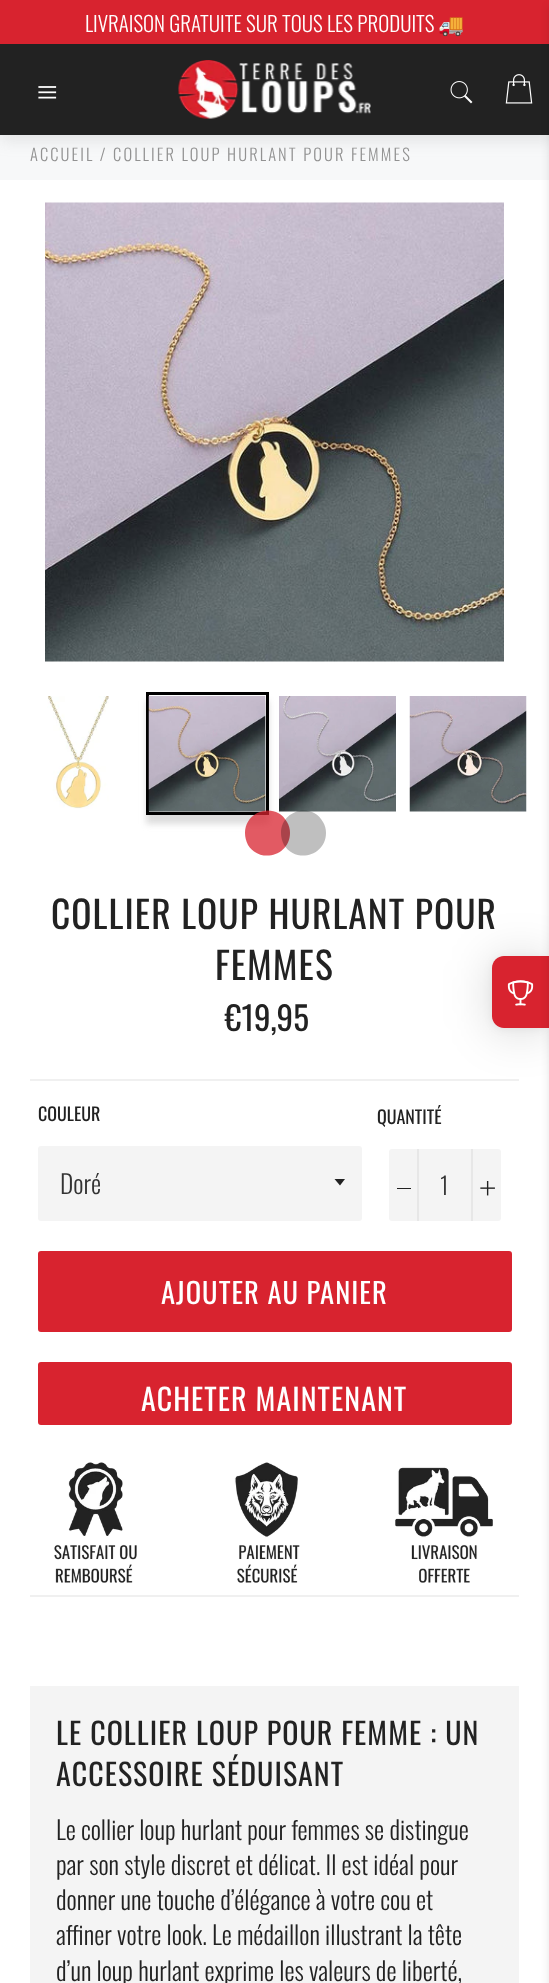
<?xml version="1.0" encoding="UTF-8"?>
<svg xmlns="http://www.w3.org/2000/svg" xmlns:xlink="http://www.w3.org/1999/xlink" width="549" height="1983">
  <rect width="100%" height="100%" fill="#ffffff" />
  <rect y="135" width="549" height="45" fill="#f7f8f9" />
  <rect width="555" height="141" fill="#999999" fill-opacity="0.2" filter="blur(7.5px)" />
  <rect width="549" height="44" fill="#d8232f" />
  <rect y="44" width="549" height="91" fill="#222222" />
  <image x="38" y="86" width="19" height="13" xlink:href="image1.png" />
  <image x="178" y="60" width="193" height="59" xlink:href="image2.png" />
  <image x="450" y="81" width="23" height="23" xlink:href="image3.png" />
  <image x="505" y="74" width="28" height="30" xlink:href="image4.png" />
  <rect x="30" y="1079" width="489" height="2" fill="#f0f0f0" />
  <rect x="492" y="959" width="57" height="72" rx="12" fill="#000000" fill-opacity="0.16" filter="blur(24px)" />
  <rect x="492" y="957" width="57" height="72" rx="12" fill="#000000" fill-opacity="0.06" filter="blur(4.5px)" />
  <path d="M 504 956 h 45 v 72 h -45 c -6.5 0 -12 -5.5 -12 -12 v -48 c 0 -6.5 5.5 -12 12 -12 z" fill="#d8232f" />
  <rect x="549" y="6" width="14" height="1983" fill="#000000" fill-opacity="0.1" filter="blur(4.5px)" />
  <image x="45" y="202" width="459" height="460" xlink:href="image5.png" />
  <image x="47" y="696" width="62" height="113" xlink:href="image6.png" />
  <rect x="146" y="701" width="123" height="123" fill="#c7c7c7" fill-opacity="0.6" filter="blur(3px)" />
  <rect x="147.5" y="693.5" width="120" height="120" fill="none" stroke="#000000" stroke-width="3" />
  <image x="148" y="696" width="118" height="116" xlink:href="image7.png" />
  <image x="279" y="696" width="117" height="116" xlink:href="image8.png" />
  <image x="409" y="696" width="118" height="116" xlink:href="image9.png" />
  <path d="M 287 822 c 2 3 3 7 3 11 c 0 23 -30 31 -42 12 c -2 -4 -3 -8 -3 -12 c 0 -23 31 -31 42 -11 z" fill="#d8232f" fill-opacity="0.75" />
  <path d="M 323 822 c 2 3 3 7 3 11 c 0 23 -30 31 -42 12 c -2 -4 -3 -8 -3 -12 c 0 -23 31 -31 42 -11 z" fill="#000000" fill-opacity="0.25" />
  <rect x="38" y="1146" width="324" height="75" rx="3" fill="#f4f4f4" />
  <path d="M 334.5 1179 l 5.5 6.5 l 5 -6.5 z" fill="#222222" />
  <rect x="389" y="1149" width="112" height="72" rx="3" fill="#f4f4f4" />
  <rect x="417" y="1149" width="2" height="72" fill="#e7e7e7" />
  <rect x="397" y="1188" width="14" height="1" fill="#222222" />
  <rect x="471" y="1149" width="2" height="72" fill="#e7e7e7" />
  <image x="480" y="1181" width="15" height="15" xlink:href="image10.png" />
  <rect x="39.5" y="1252.5" width="471" height="78" rx="1.5" fill="#d8232f" stroke="#d8232f" stroke-width="3" />
  <rect x="39.5" y="1363.5" width="471" height="60" rx="1.5" fill="#d8232f" stroke="#d8232f" stroke-width="3" />
  <image x="54" y="1462" width="439" height="121" xlink:href="image11.png" />
  <rect x="30" y="1595" width="489" height="2" fill="#f0f0f0" />
  <rect x="30" y="1686" width="489" height="297" fill="#f4f4f4" />
  <image x="507" y="980" width="27" height="26" xlink:href="image12.png" />
  <text x="85" y="32" style="font-family: Oswald; font-size: 21px; font-weight: 300; fill: #ffffff">LIVRAISON GRATUITE SUR TOUS LES PRODUITS</text>
  <text x="438" y="32" style="font-family: Noto Color Emoji; font-size: 21px; fill: #ffffff">🚚</text>
  <text x="30" y="161" style="font-family: Oswald; font-size: 16.5px; font-weight: 300; letter-spacing: 2.1px; fill: #929292">ACCUEIL / COLLIER LOUP HURLANT POUR FEMMES</text>
  <text x="51" y="929" style="font-family: Oswald; font-size: 37.5px; letter-spacing: 1.05px; fill: #222222">COLLIER LOUP HURLANT POUR</text>
  <text x="215" y="980" style="font-family: Oswald; font-size: 37.5px; letter-spacing: 1.05px; fill: #222222">FEMMES</text>
  <text x="225" y="1031" style="font-family: Oswald; font-size: 33px; fill: #222222">€19,95</text>
  <text x="38" y="1121" style="font-family: Oswald; font-size: 18px; fill: #222222">COULEUR</text>
  <text x="60" y="1194" style="font-family: Oswald; font-size: 25.5px; font-weight: 300; fill: #333333">Doré</text>
  <text x="377" y="1124" style="font-family: Oswald; font-size: 18px; fill: #222222">QUANTITÉ</text>
  <text x="440" y="1195" style="font-family: Oswald; font-size: 24px; font-weight: 300; fill: #333333">1</text>
  <text x="161" y="1304" style="font-family: Oswald; font-size: 28.5px; letter-spacing: 1.05px; fill: #ffffff">AJOUTER AU PANIER</text>
  <text x="141" y="1411" style="font-family: Oswald; font-size: 30px; letter-spacing: 1.05px; fill: #ffffff">ACHETER MAINTENANT</text>
  <text x="56" y="1745" style="font-family: Oswald; font-size: 30px; letter-spacing: 1.05px; fill: #222222">LE COLLIER LOUP POUR FEMME : UN</text>
  <text x="56" y="1786" style="font-family: Oswald; font-size: 30px; letter-spacing: 1.05px; fill: #222222">ACCESSOIRE SÉDUISANT</text>
  <text x="56" y="1840" style="font-family: Oswald; font-size: 25.5px; font-weight: 300; fill: #222222">Le collier loup hurlant pour femmes se distingue</text>
  <text x="56" y="1875" style="font-family: Oswald; font-size: 25.5px; font-weight: 300; fill: #222222">par son style discret et délicat. Il est idéal pour</text>
  <text x="56" y="1910" style="font-family: Oswald; font-size: 25.5px; font-weight: 300; fill: #222222">donner une touche d’élégance à votre cou et</text>
  <text x="56" y="1945" style="font-family: Oswald; font-size: 25.5px; font-weight: 300; fill: #222222">affiner votre look. Le médaillon illustrant la tête</text>
  <text x="56" y="1981" style="font-family: Oswald; font-size: 25.5px; font-weight: 300; fill: #222222">d’un loup hurlant exprime les valeurs de liberté,</text>
</svg>
